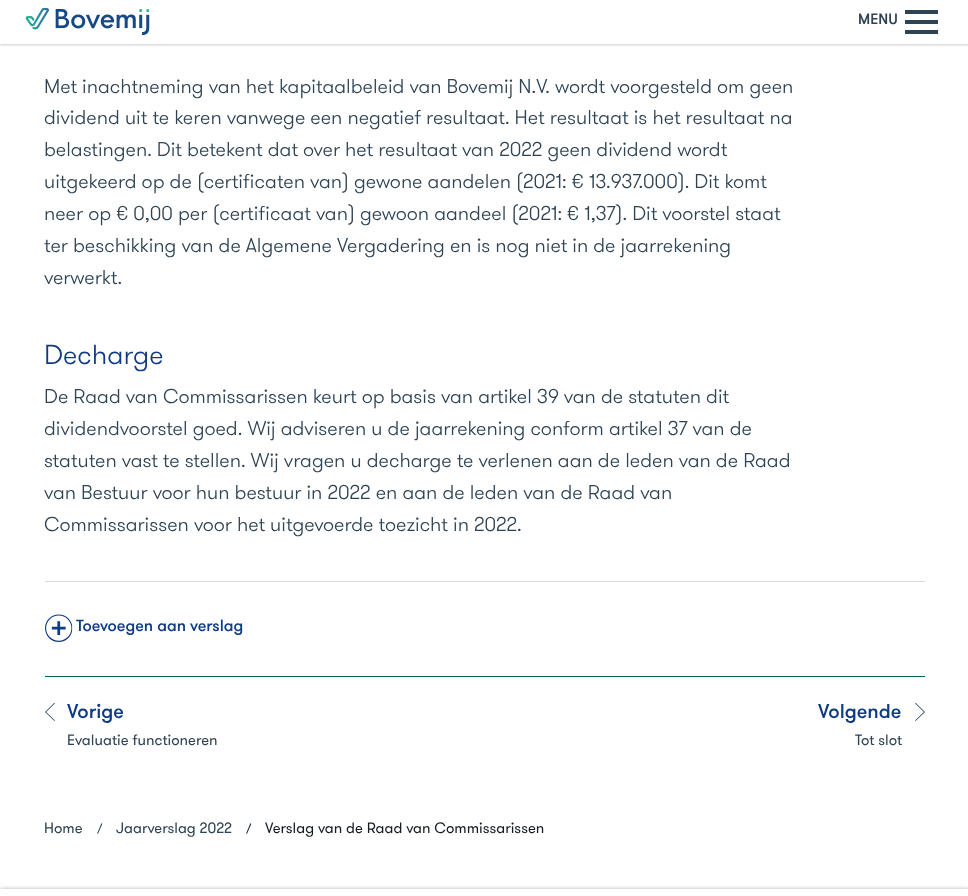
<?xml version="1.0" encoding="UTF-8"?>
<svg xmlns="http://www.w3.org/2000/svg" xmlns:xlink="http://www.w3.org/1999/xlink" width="968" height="896">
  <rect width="100%" height="100%" fill="#ffffff" />
  <rect y="1" width="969" height="44" fill="#000000" fill-opacity="0.2" filter="blur(1px)" />
  <rect width="968" height="44" fill="#ffffff" />
  <image x="25" y="8" width="125" height="28" xlink:href="image1.png" />
  <rect x="905" y="10" width="33" height="4" fill="#2e4354" />
  <rect x="905" y="20" width="33" height="4" fill="#2e4354" />
  <rect x="905" y="30" width="33" height="4" fill="#2e4354" />
  <rect x="45" y="581" width="880" height="1" fill="#d5d9dd" />
  <image x="45" y="614" width="28" height="28" xlink:href="image2.png" />
  <rect x="45" y="676" width="880" height="1" fill="#006055" />
  <image x="45" y="703" width="10" height="18" xlink:href="image3.png" />
  <image x="915" y="703" width="10" height="18" xlink:href="image4.png" />
  <rect y="889" width="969" height="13" fill="#000000" fill-opacity="0.3" filter="blur(2px)" />
  <rect y="889" width="968" height="7" fill="#ffffff" />
  <text x="858" y="24" style="font-family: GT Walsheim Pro; font-size: 15px; font-weight: 500; fill: #2e4354">MENU</text>
  <text x="44" y="93" style="font-family: GT Walsheim Pro; font-size: 20px; font-weight: 300; fill: #2e4354">Met inachtneming van het kapitaalbeleid van Bovemij N.V. wordt voorgesteld om geen</text>
  <text x="44" y="124" style="font-family: GT Walsheim Pro; font-size: 20px; font-weight: 300; fill: #2e4354">dividend uit te keren vanwege een negatief resultaat. Het resultaat is het resultaat na</text>
  <text x="44" y="156" style="font-family: GT Walsheim Pro; font-size: 20px; font-weight: 300; fill: #2e4354">belastingen. Dit betekent dat over het resultaat van 2022 geen dividend wordt</text>
  <text x="44" y="188" style="font-family: GT Walsheim Pro; font-size: 20px; font-weight: 300; fill: #2e4354">uitgekeerd op de (certificaten van) gewone aandelen (2021: € 13.937.000). Dit komt</text>
  <text x="44" y="220" style="font-family: GT Walsheim Pro; font-size: 20px; font-weight: 300; fill: #2e4354">neer op € 0,00 per (certificaat van) gewoon aandeel (2021: € 1,37). Dit voorstel staat</text>
  <text x="44" y="252" style="font-family: GT Walsheim Pro; font-size: 20px; font-weight: 300; fill: #2e4354">ter beschikking van de Algemene Vergadering en is nog niet in de jaarrekening</text>
  <text x="44" y="284" style="font-family: GT Walsheim Pro; font-size: 20px; font-weight: 300; fill: #2e4354">verwerkt.</text>
  <text x="44" y="364" style="font-family: GT Walsheim Pro; font-size: 27.5px; font-weight: 300; fill: #0e3b83">Decharge</text>
  <text x="44" y="403" style="font-family: GT Walsheim Pro; font-size: 20px; font-weight: 300; fill: #2e4354">De Raad van Commissarissen keurt op basis van artikel 39 van de statuten dit</text>
  <text x="44" y="435" style="font-family: GT Walsheim Pro; font-size: 20px; font-weight: 300; fill: #2e4354">dividendvoorstel goed. Wij adviseren u de jaarrekening conform artikel 37 van de</text>
  <text x="44" y="467" style="font-family: GT Walsheim Pro; font-size: 20px; font-weight: 300; fill: #2e4354">statuten vast te stellen. Wij vragen u decharge te verlenen aan de leden van de Raad</text>
  <text x="44" y="499" style="font-family: GT Walsheim Pro; font-size: 20px; font-weight: 300; fill: #2e4354">van Bestuur voor hun bestuur in 2022 en aan de leden van de Raad van</text>
  <text x="44" y="531" style="font-family: GT Walsheim Pro; font-size: 20px; font-weight: 300; fill: #2e4354">Commissarissen voor het uitgevoerde toezicht in 2022.</text>
  <text x="76" y="631" style="font-family: GT Walsheim Pro; font-size: 16.25px; font-weight: 500; fill: #0e3b83">Toevoegen aan verslag</text>
  <text x="67" y="718" style="font-family: GT Walsheim Pro; font-size: 20px; font-weight: 500; fill: #0e3b83">Vorige</text>
  <text x="67" y="745" style="font-family: GT Walsheim Pro; font-size: 15px; fill: #2e4354">Evaluatie functioneren</text>
  <text x="818" y="718" style="font-family: GT Walsheim Pro; font-size: 20px; font-weight: 500; fill: #0e3b83">Volgende</text>
  <text x="855" y="745" style="font-family: GT Walsheim Pro; font-size: 15px; fill: #2e4354">Tot slot</text>
  <text x="44" y="833" style="font-family: GT Walsheim Pro; font-size: 15px; fill: #2e4354">Home</text>
  <text x="97" y="833" style="font-family: GT Walsheim Pro; font-size: 12px; fill: #2e4354">/</text>
  <text x="116" y="833" style="font-family: GT Walsheim Pro; font-size: 15px; fill: #2e4354">Jaarverslag 2022</text>
  <text x="246" y="833" style="font-family: GT Walsheim Pro; font-size: 12px; fill: #131c23">/</text>
  <text x="265" y="833" style="font-family: GT Walsheim Pro; font-size: 15px; fill: #131c23">Verslag van de Raad van Commissarissen</text>
</svg>
